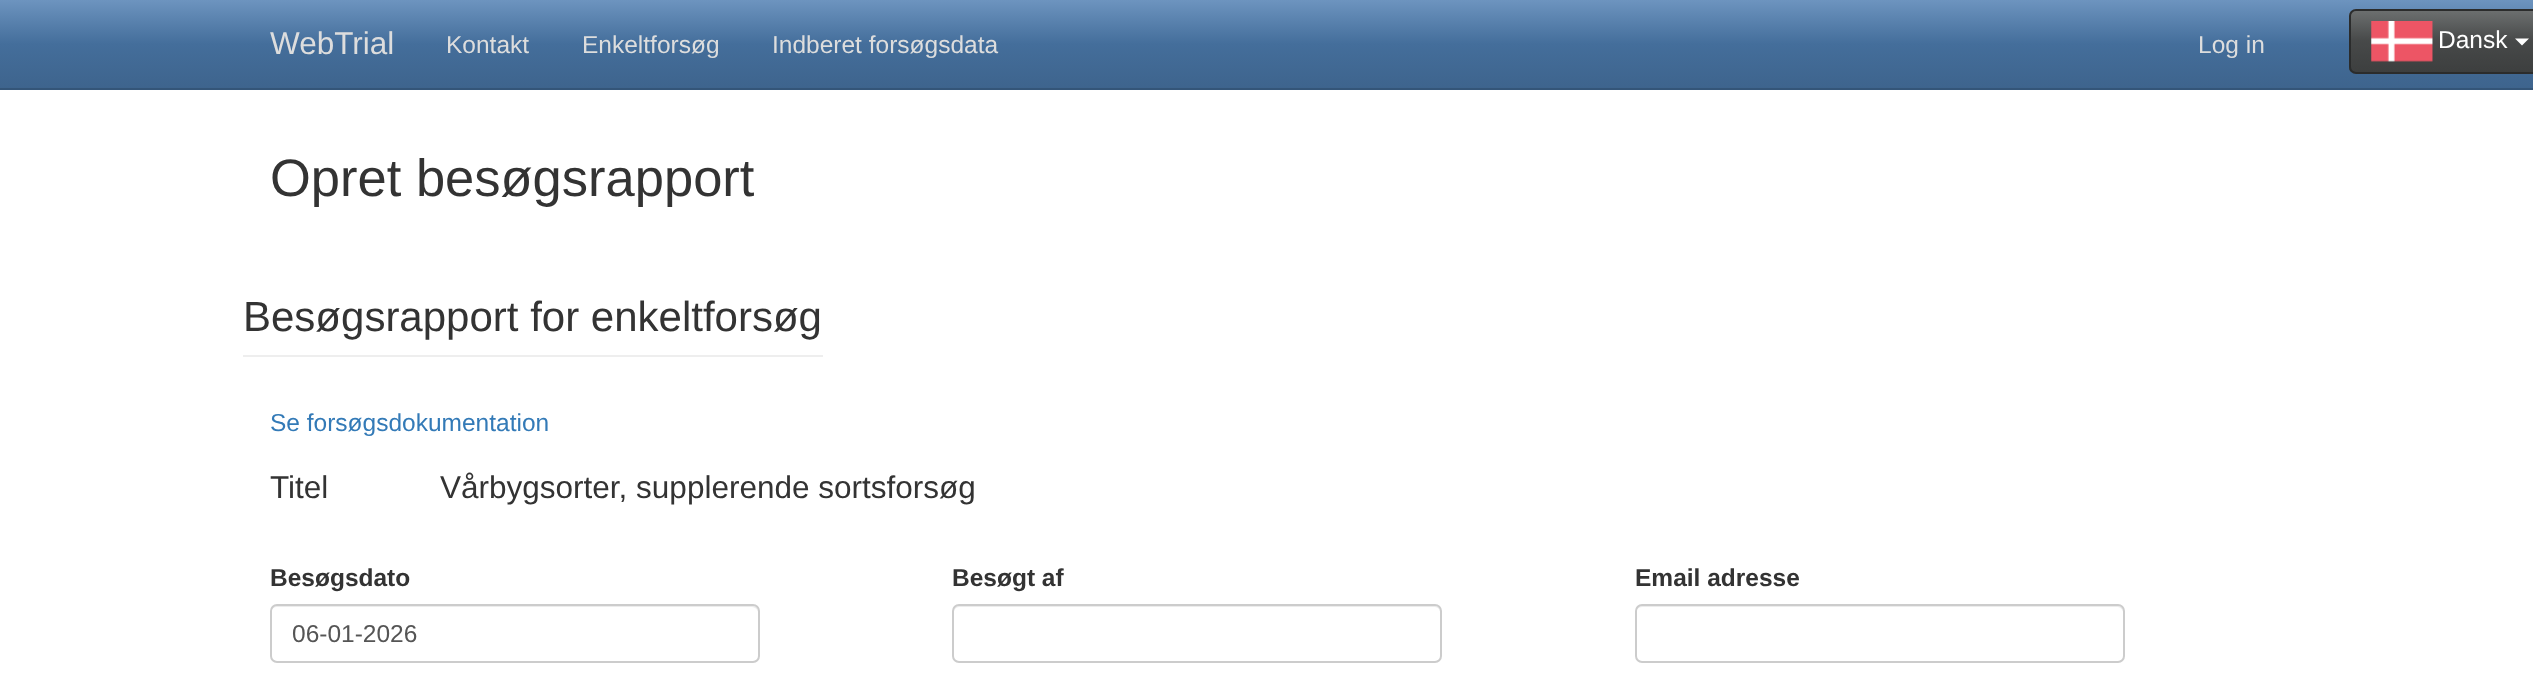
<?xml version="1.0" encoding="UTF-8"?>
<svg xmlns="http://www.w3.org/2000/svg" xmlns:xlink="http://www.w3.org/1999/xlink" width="2533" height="699">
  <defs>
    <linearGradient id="g1" gradientUnits="userSpaceOnUse" x1="1267" y1="0" x2="1267" y2="88"><stop offset="0" stop-color="#6d94bf" /><stop offset="0.5" stop-color="#446e9b" /><stop offset="1" stop-color="#3e648d" /></linearGradient>
    <clipPath id="clip1"><rect x="2349" y="9" width="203" height="65" rx="7" /></clipPath>
    <linearGradient id="g2" gradientUnits="userSpaceOnUse" x1="2450" y1="10" x2="2450" y2="72"><stop offset="0" stop-color="#6d7070" /><stop offset="0.5" stop-color="#474949" /><stop offset="1" stop-color="#3d3f3f" /></linearGradient>
  </defs>
  <rect width="100%" height="100%" fill="#ffffff" />
  <rect width="2533" height="88" fill="url(#g1)" />
  <rect y="88" width="2533" height="2" fill="#345578" />
  <g clip-path="url(#clip1)">
    <rect x="2349" y="11" width="184" height="61" fill="url(#g2)" />
  </g>
  <rect x="2350" y="10" width="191" height="63" rx="6" fill="none" stroke="#2b2c2c" stroke-width="2" />
  <image x="2371" y="21" width="62" height="41" xlink:href="image1.png" />
  <path d="M 2515 38.5 h 14 l -7 7 z" fill="#ffffff" />
  <rect x="243" y="355" width="580" height="2" fill="#eeeeee" />
  <path d="M 276 607 h 476 c 3 0 6 3 6 5 v -1 c 0 -3 -2 -5 -5 -5 h -477 c -3 0 -5 2 -5 5 v 1 c 0 -2 3 -5 5 -5 z" fill="#ececec" />
  <rect x="271" y="605" width="488" height="57" rx="6" fill="none" stroke="#cccccc" stroke-width="2" />
  <path d="M 959 607 h 476 c 3 0 5 3 5 5 v -1 c 0 -3 -2 -5 -5 -5 h -476 c -3 0 -5 2 -5 5 v 1 c 0 -2 2 -5 5 -5 z" fill="#ececec" />
  <rect x="953" y="605" width="488" height="57" rx="6" fill="none" stroke="#cccccc" stroke-width="2" />
  <path d="M 1642 607 h 476 c 2 0 5 3 5 5 v -1 c 0 -3 -2 -5 -5 -5 h -477 c -3 0 -5 2 -5 5 v 1 c 0 -2 3 -5 6 -5 z" fill="#ececec" />
  <rect x="1636" y="605" width="488" height="57" rx="6" fill="none" stroke="#cccccc" stroke-width="2" />
  <text x="270" y="54" style="font-family: Liberation Sans; font-size: 31.5px; fill: #dddddd">WebTrial</text>
  <text x="446" y="53" style="font-family: Liberation Sans; font-size: 24.5px; fill: #dddddd">Kontakt</text>
  <text x="582" y="53" style="font-family: Liberation Sans; font-size: 24.5px; fill: #dddddd">Enkeltforsøg</text>
  <text x="772" y="53" style="font-family: Liberation Sans; font-size: 24.5px; fill: #dddddd">Indberet forsøgsdata</text>
  <text x="2198" y="53" style="font-family: Liberation Sans; font-size: 24.5px; fill: #dddddd">Log in</text>
  <text x="2438" y="48" style="font-family: Liberation Sans; font-size: 24.5px; fill: #ffffff">Dansk</text>
  <text x="270" y="196" style="font-family: Liberation Sans; font-size: 52.5px; fill: #333333">Opret besøgsrapport</text>
  <text x="243" y="331" style="font-family: Liberation Sans; font-size: 42px; fill: #333333">Besøgsrapport for enkeltforsøg</text>
  <text x="270" y="431" style="font-family: Liberation Sans; font-size: 24.5px; fill: #337ab7">Se forsøgsdokumentation</text>
  <text x="270" y="498" style="font-family: Liberation Sans; font-size: 31.5px; fill: #333333">Titel</text>
  <text x="440" y="498" style="font-family: Liberation Sans; font-size: 31.5px; fill: #333333">Vårbygsorter, supplerende sortsforsøg</text>
  <text x="270" y="586" style="font-family: Liberation Sans; font-size: 24.5px; font-weight: bold; fill: #333333">Besøgsdato</text>
  <text x="292" y="642" style="font-family: Liberation Sans; font-size: 24.5px; fill: #555555">06-01-2026</text>
  <text x="952" y="586" style="font-family: Liberation Sans; font-size: 24.5px; font-weight: bold; fill: #333333">Besøgt af</text>
  <text x="1635" y="586" style="font-family: Liberation Sans; font-size: 24.5px; font-weight: bold; fill: #333333">Email adresse</text>
</svg>
